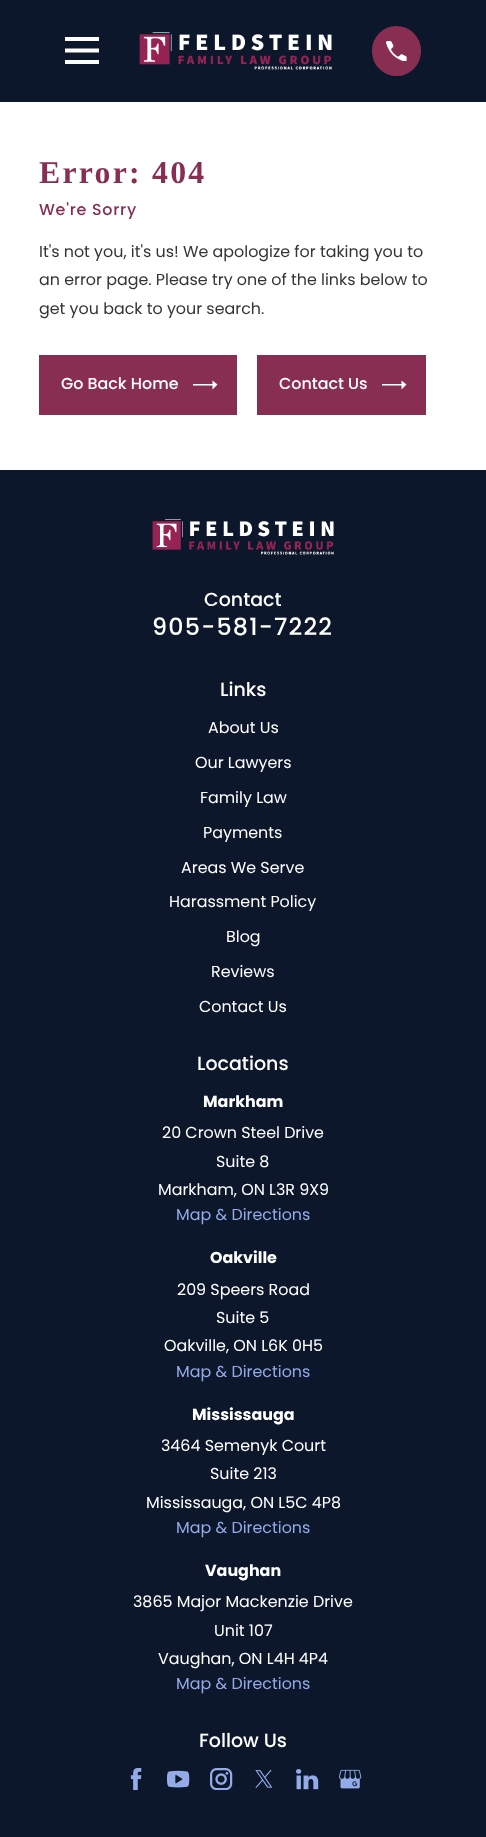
<?xml version="1.0" encoding="UTF-8"?>
<svg xmlns="http://www.w3.org/2000/svg" xmlns:xlink="http://www.w3.org/1999/xlink" width="486" height="1837">
  <defs>
    <clipPath id="clip1"><rect x="65" y="33" width="34" height="35" /></clipPath>
  </defs>
  <rect width="100%" height="100%" fill="#ffffff" />
  <rect width="486" height="102" fill="#0c172b" />
  <g clip-path="url(#clip1)">
    <path d="M 65 37 v 4 h 35 v -4 z m 0 11.5 v 4 h 35 v -4 z m 0 11.5 v 4 h 35 v -4 z" fill="#ffffff" />
  </g>
  <image x="139" y="32" width="193" height="38" xlink:href="image1.png" />
  <rect x="372" y="26" width="49" height="50" rx="24.5" fill="#892e53" />
  <image x="386" y="41" width="21" height="20" xlink:href="image2.png" />
  <rect x="39" y="355" width="198" height="60" fill="#892e53" />
  <path d="M 212.5 380.5 l 5 4 l -5 5 v -4 h -19.5 v -1.5 h 19.5 z" fill="#ffffff" />
  <rect x="257" y="355" width="169" height="60" fill="#892e53" />
  <path d="M 401.5 380.5 l 5 4 l -5 5 v -4 h -19.5 v -1.5 h 19.5 z" fill="#ffffff" />
  <rect y="470" width="486" height="1367" fill="#0c172b" />
  <image x="152" y="519" width="182" height="36" xlink:href="image3.png" />
  <image x="130" y="1768" width="12" height="22" xlink:href="image4.png" />
  <image x="167" y="1770" width="23" height="18" xlink:href="image5.png" />
  <image x="210" y="1768" width="23" height="22" xlink:href="image6.png" />
  <image x="255" y="1770" width="18" height="18" xlink:href="image7.png" />
  <image x="296" y="1769" width="23" height="21" xlink:href="image8.png" />
  <image x="339" y="1769" width="23" height="20" xlink:href="image9.png" />
  <text x="39" y="183" style="font-family: Liberation Serif; font-size: 31.75px; font-weight: bold; letter-spacing: 2.25px; fill: #892e53">Error: 404</text>
  <text x="39" y="215" style="font-family: Poppins; font-size: 15.9px; font-weight: 500; letter-spacing: 0.75px; fill: #892e53">We're Sorry</text>
  <text x="39" y="257" style="font-family: Poppins; font-size: 15.9px; fill: #343434">It's not you, it's us! We apologize for taking you to</text>
  <text x="39" y="285" style="font-family: Poppins; font-size: 15.9px; fill: #343434">an error page. Please try one of the links below to</text>
  <text x="39" y="314" style="font-family: Poppins; font-size: 15.9px; fill: #343434">get you back to your search.</text>
  <text x="61" y="389" style="font-family: Poppins; font-size: 15.9px; font-weight: 500; fill: #ffffff">Go Back Home</text>
  <text x="279" y="389" style="font-family: Poppins; font-size: 15.9px; font-weight: 500; fill: #ffffff">Contact Us</text>
  <text x="204" y="606" style="font-family: Poppins; font-size: 19px; font-weight: 500; fill: #ffffff">Contact</text>
  <text x="152" y="635" style="font-family: Poppins; font-size: 23.75px; font-weight: 500; letter-spacing: 1.25px; fill: #ffffff">905-581-7222</text>
  <text x="220" y="696" style="font-family: Poppins; font-size: 19px; font-weight: 500; fill: #ffffff">Links</text>
  <text x="208" y="733" style="font-family: Poppins; font-size: 15.9px; fill: #ffffff">About Us</text>
  <text x="195" y="768" style="font-family: Poppins; font-size: 15.9px; fill: #ffffff">Our Lawyers</text>
  <text x="200" y="803" style="font-family: Poppins; font-size: 15.9px; fill: #ffffff">Family Law</text>
  <text x="203" y="838" style="font-family: Poppins; font-size: 15.9px; fill: #ffffff">Payments</text>
  <text x="181" y="873" style="font-family: Poppins; font-size: 15.9px; fill: #ffffff">Areas We Serve</text>
  <text x="169" y="907" style="font-family: Poppins; font-size: 15.9px; fill: #ffffff">Harassment Policy</text>
  <text x="226" y="942" style="font-family: Poppins; font-size: 15.9px; fill: #ffffff">Blog</text>
  <text x="211" y="977" style="font-family: Poppins; font-size: 15.9px; fill: #ffffff">Reviews</text>
  <text x="199" y="1012" style="font-family: Poppins; font-size: 15.9px; fill: #ffffff">Contact Us</text>
  <text x="197" y="1070" style="font-family: Poppins; font-size: 19px; font-weight: 500; fill: #ffffff">Locations</text>
  <text x="203" y="1107" style="font-family: Poppins; font-size: 15.9px; font-weight: bold; fill: #ffffff">Markham</text>
  <text x="162" y="1138" style="font-family: Poppins; font-size: 15.9px; fill: #ffffff">20 Crown Steel Drive</text>
  <text x="216" y="1167" style="font-family: Poppins; font-size: 15.9px; fill: #ffffff">Suite 8</text>
  <text x="158" y="1195" style="font-family: Poppins; font-size: 15.9px; fill: #ffffff">Markham, ON L3R 9X9</text>
  <text x="176" y="1220" style="font-family: Poppins; font-size: 15.9px; fill: #94abe8">Map &amp; Directions</text>
  <text x="210" y="1263" style="font-family: Poppins; font-size: 15.9px; font-weight: bold; fill: #ffffff">Oakville</text>
  <text x="177" y="1295" style="font-family: Poppins; font-size: 15.9px; fill: #ffffff">209 Speers Road</text>
  <text x="216" y="1323" style="font-family: Poppins; font-size: 15.9px; fill: #ffffff">Suite 5</text>
  <text x="164" y="1351" style="font-family: Poppins; font-size: 15.9px; fill: #ffffff">Oakville, ON L6K 0H5</text>
  <text x="176" y="1377" style="font-family: Poppins; font-size: 15.9px; fill: #94abe8">Map &amp; Directions</text>
  <text x="192" y="1420" style="font-family: Poppins; font-size: 15.9px; font-weight: bold; fill: #ffffff">Mississauga</text>
  <text x="161" y="1451" style="font-family: Poppins; font-size: 15.9px; fill: #ffffff">3464 Semenyk Court</text>
  <text x="210" y="1479" style="font-family: Poppins; font-size: 15.9px; fill: #ffffff">Suite 213</text>
  <text x="146" y="1508" style="font-family: Poppins; font-size: 15.9px; fill: #ffffff">Mississauga, ON L5C 4P8</text>
  <text x="176" y="1533" style="font-family: Poppins; font-size: 15.9px; fill: #94abe8">Map &amp; Directions</text>
  <text x="205" y="1576" style="font-family: Poppins; font-size: 15.9px; font-weight: bold; fill: #ffffff">Vaughan</text>
  <text x="133" y="1607" style="font-family: Poppins; font-size: 15.9px; fill: #ffffff">3865 Major Mackenzie Drive</text>
  <text x="214" y="1636" style="font-family: Poppins; font-size: 15.9px; fill: #ffffff">Unit 107</text>
  <text x="158" y="1664" style="font-family: Poppins; font-size: 15.9px; fill: #ffffff">Vaughan, ON L4H 4P4</text>
  <text x="176" y="1689" style="font-family: Poppins; font-size: 15.9px; fill: #94abe8">Map &amp; Directions</text>
  <text x="199" y="1747" style="font-family: Poppins; font-size: 19px; font-weight: 500; fill: #ffffff">Follow Us</text>
</svg>
